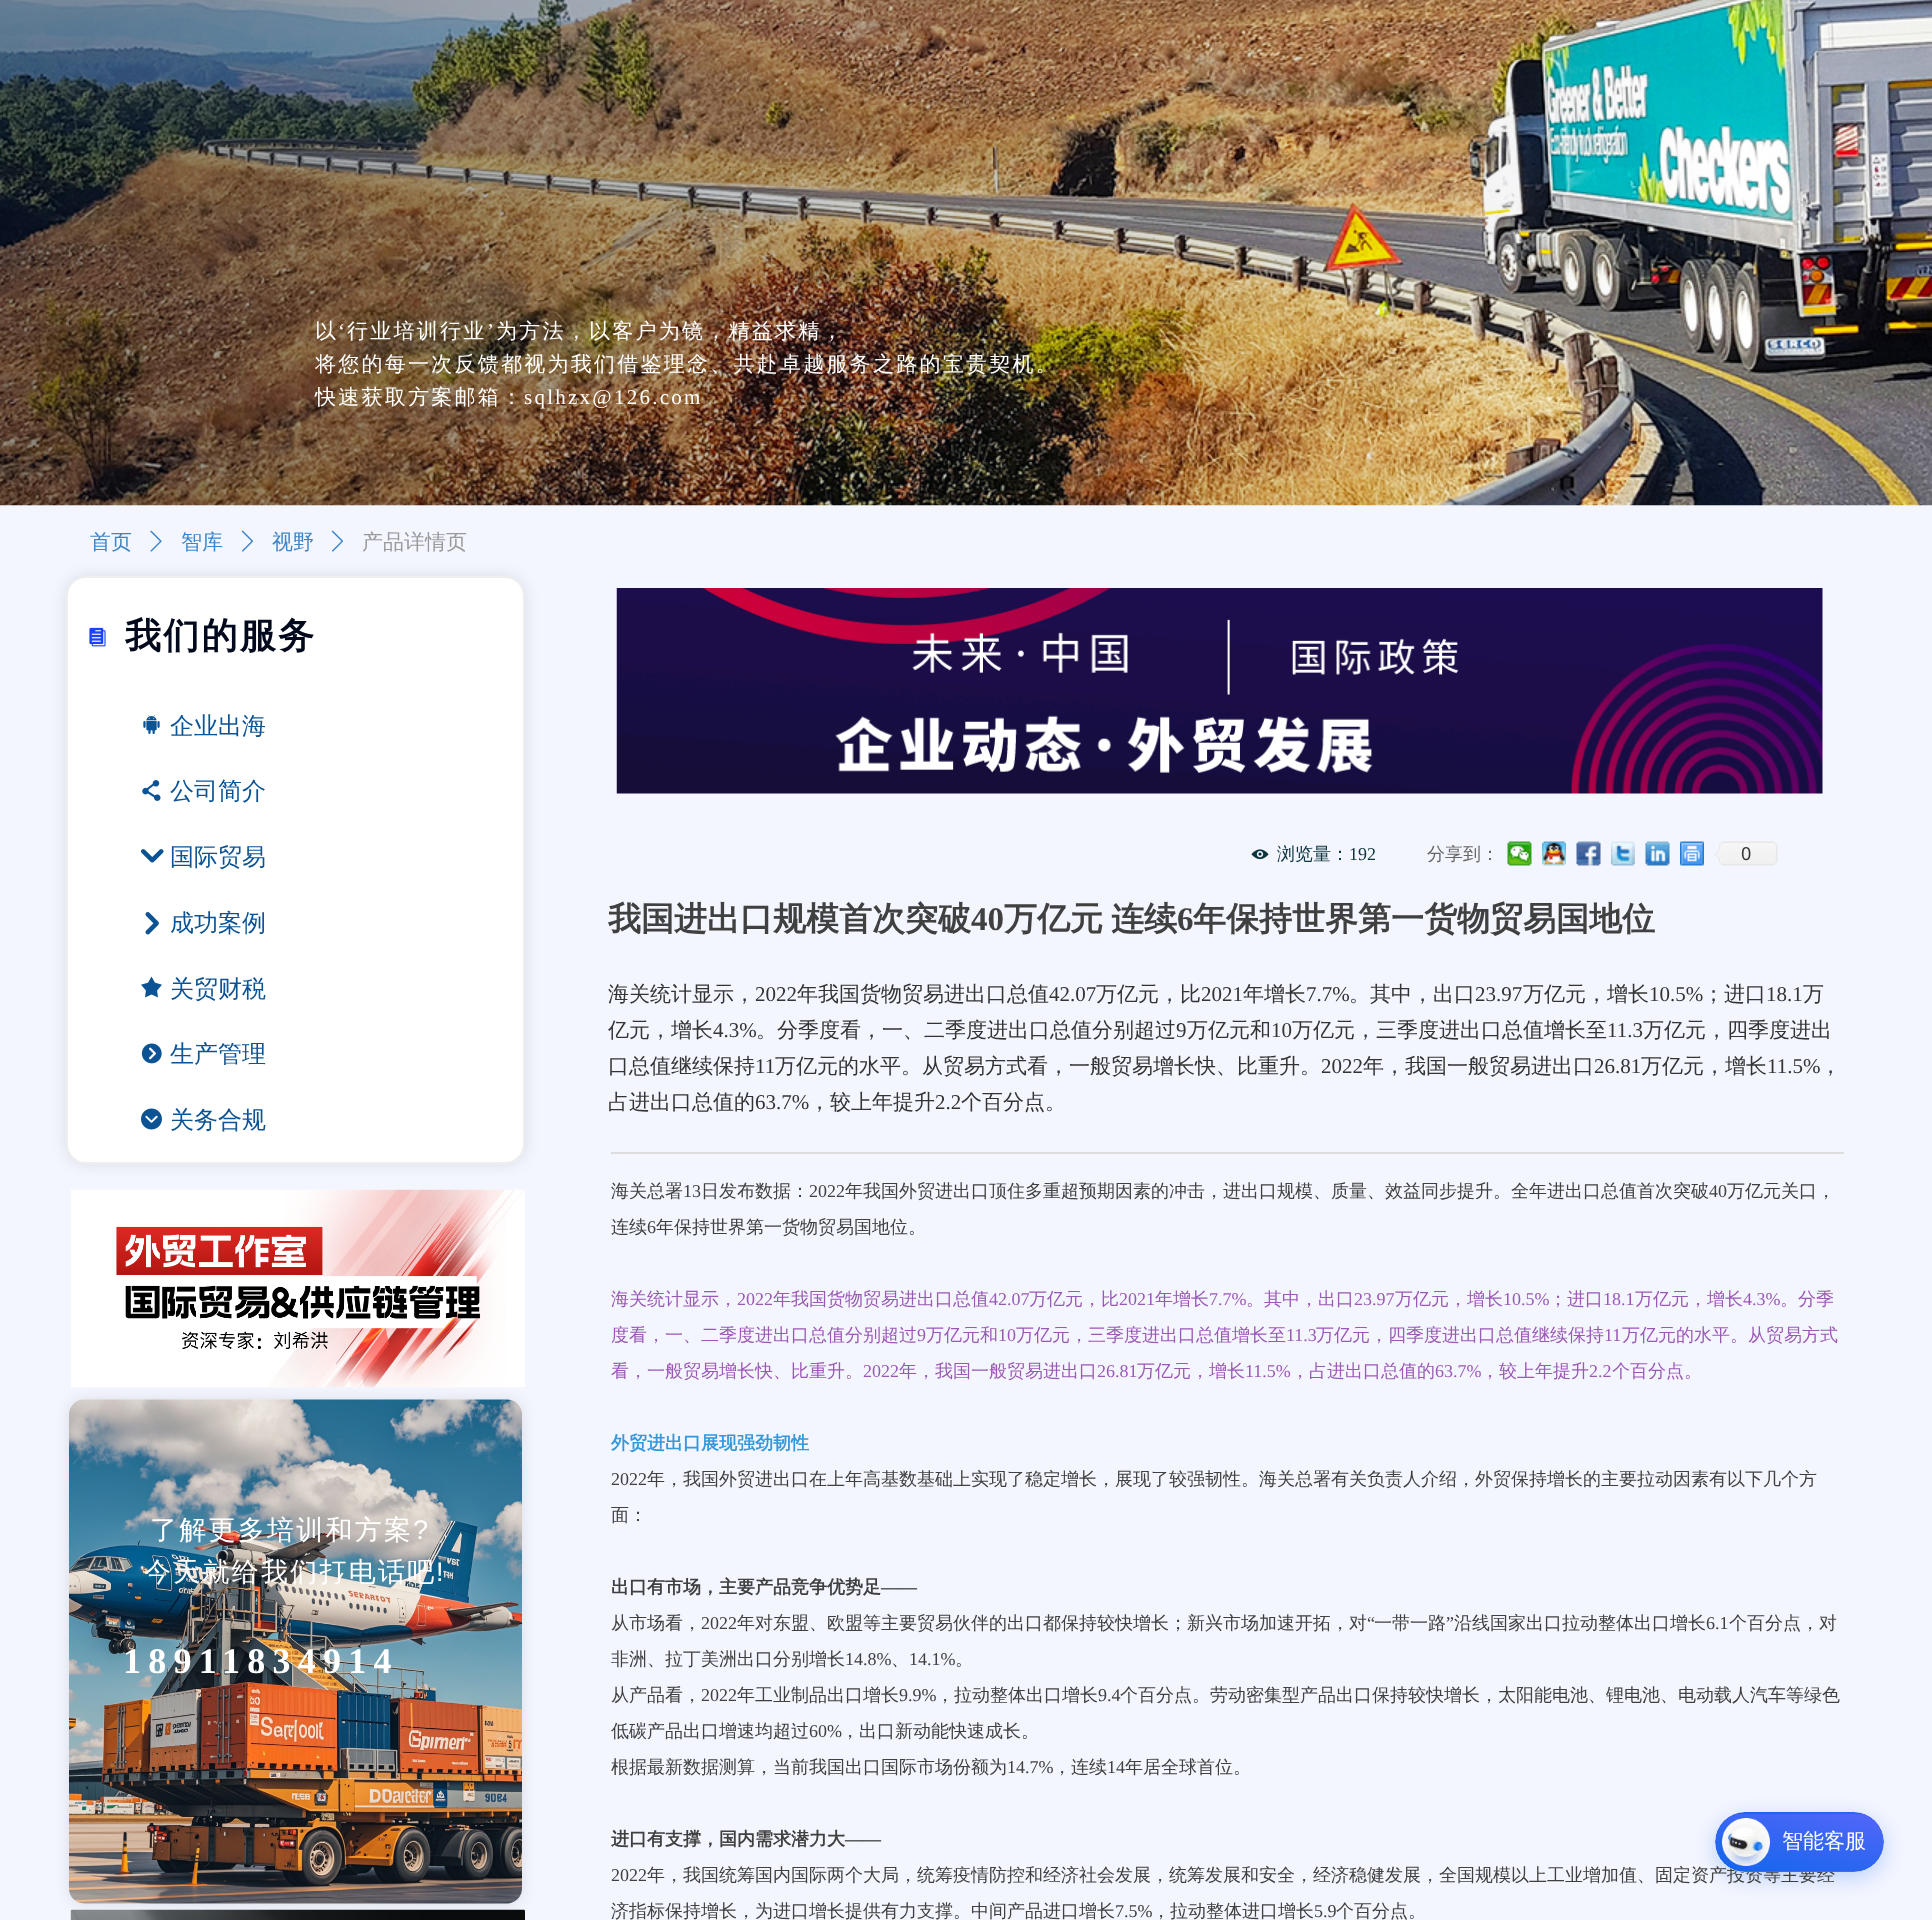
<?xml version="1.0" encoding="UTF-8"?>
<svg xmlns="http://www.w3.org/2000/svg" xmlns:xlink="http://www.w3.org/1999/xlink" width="1932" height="1920">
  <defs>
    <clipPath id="clip1"><rect x="1715" y="1812" width="169" height="60" rx="30" /></clipPath>
    <linearGradient id="g1" gradientUnits="userSpaceOnUse" x1="1820" y1="1696" x2="1789" y2="1830"><stop offset="0" stop-color="#7366ff" /><stop offset="1" stop-color="#1366ec" /></linearGradient>
    <linearGradient id="g2" gradientUnits="userSpaceOnUse" x1="1653" y1="1753" x2="1622" y2="1887"><stop offset="0" stop-color="#7366ff" /><stop offset="1" stop-color="#1366ec" /></linearGradient>
    <linearGradient id="g3" gradientUnits="userSpaceOnUse" x1="1820" y1="1753" x2="1789" y2="1887"><stop offset="0" stop-color="#7366ff" /><stop offset="1" stop-color="#1366ec" /></linearGradient>
    <linearGradient id="g4" gradientUnits="userSpaceOnUse" x1="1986" y1="1753" x2="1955" y2="1887"><stop offset="0" stop-color="#7366ff" /><stop offset="1" stop-color="#1366ec" /></linearGradient>
    <linearGradient id="g5" gradientUnits="userSpaceOnUse" x1="1820" y1="1810" x2="1789" y2="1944"><stop offset="0" stop-color="#7366ff" /><stop offset="1" stop-color="#1366ec" /></linearGradient>
  </defs>
  <rect width="100%" height="100%" fill="#f4f6ff" />
  <rect y="505" width="1932" height="1" fill="#f1f4ff" />
  <image x="0" y="0" width="1932" height="506" xlink:href="image1.png" />
  <image x="150" y="530" width="12" height="22" xlink:href="image2.png" />
  <image x="241" y="530" width="13" height="22" xlink:href="image3.png" />
  <image x="331" y="530" width="13" height="22" xlink:href="image3.png" />
  <rect x="66" y="576" width="459" height="588" rx="20" fill="#000000" fill-opacity="0.1" filter="blur(7.5px)" />
  <rect x="67" y="577" width="457" height="586" rx="19" fill="#ffffff" stroke="#eeeeee" stroke-width="2" />
  <image x="89" y="627" width="17" height="20" xlink:href="image4.png" />
  <image x="143" y="715" width="17" height="19" xlink:href="image5.png" />
  <image x="142" y="780" width="19" height="21" xlink:href="image6.png" />
  <image x="140" y="849" width="24" height="14" xlink:href="image7.png" />
  <image x="145" y="912" width="14" height="23" xlink:href="image8.png" />
  <image x="141" y="976" width="21" height="22" xlink:href="image9.png" />
  <image x="141" y="1043" width="21" height="21" xlink:href="image10.png" />
  <image x="141" y="1108" width="21" height="22" xlink:href="image11.png" />
  <image x="616" y="588" width="1207" height="206" xlink:href="image12.png" />
  <image x="1251" y="849" width="18" height="11" xlink:href="image13.png" />
  <image x="1507" y="841" width="25" height="25" xlink:href="image14.png" />
  <image x="1542" y="841" width="24" height="25" xlink:href="image15.png" />
  <image x="1576" y="841" width="25" height="25" xlink:href="image16.png" />
  <image x="1611" y="841" width="24" height="25" xlink:href="image17.png" />
  <image x="1645" y="841" width="25" height="25" xlink:href="image18.png" />
  <image x="1680" y="841" width="24" height="25" xlink:href="image19.png" />
  <image x="1714" y="841" width="64" height="25" xlink:href="image20.png" />
  <rect x="611" y="1152" width="1233" height="2" fill="#dddddd" />
  <rect x="69" y="1400" width="453" height="504" rx="15" fill="#000000" fill-opacity="0.1" filter="blur(7.5px)" />
  <image x="71" y="1189" width="454" height="199" xlink:href="image21.png" />
  <image x="69" y="1399" width="453" height="505" xlink:href="image22.png" />
  <image x="70" y="1909" width="455" height="11" xlink:href="image23.png" />
  <rect x="1715" y="1818" width="169" height="60" rx="30" fill="#1366ec" fill-opacity="0.26" filter="blur(11px)" />
  <text x="315" y="338" style="font-family: WenQuanYi Zen Hei; font-size: 21px; font-weight: 500; letter-spacing: 2.25px; fill: #ffffff">以</text>
  <text x="338" y="338" style="font-family: Liberation Serif; font-size: 21px; letter-spacing: 2.25px; fill: #ffffff">‘</text>
  <text x="347" y="338" style="font-family: WenQuanYi Zen Hei; font-size: 21px; font-weight: 500; letter-spacing: 2.25px; fill: #ffffff">行业培训行业</text>
  <text x="487" y="338" style="font-family: Liberation Serif; font-size: 21px; letter-spacing: 2.25px; fill: #ffffff">’</text>
  <text x="496" y="338" style="font-family: WenQuanYi Zen Hei; font-size: 21px; font-weight: 500; letter-spacing: 2.25px; fill: #ffffff">为方法，以客户为镜，精益求精，</text>
  <text x="315" y="371" style="font-family: WenQuanYi Zen Hei; font-size: 21px; font-weight: 500; letter-spacing: 2.25px; fill: #ffffff">将您的每一次反馈都视为我们借鉴理念、共赴卓越服务之路的宝贵契机。</text>
  <text x="315" y="404" style="font-family: WenQuanYi Zen Hei; font-size: 21px; font-weight: 500; letter-spacing: 2.25px; fill: #ffffff">快速获取方案邮箱：</text>
  <text x="524" y="404" style="font-family: Liberation Serif; font-size: 21px; letter-spacing: 2.25px; fill: #ffffff">sqlhzx@126.com</text>
  <text x="90" y="549" style="font-family: WenQuanYi Zen Hei; font-size: 21px; font-weight: 500; fill: #3d85c6">首页</text>
  <text x="181" y="549" style="font-family: WenQuanYi Zen Hei; font-size: 21px; font-weight: 500; fill: #3d85c6">智库</text>
  <text x="272" y="549" style="font-family: WenQuanYi Zen Hei; font-size: 21px; font-weight: 500; fill: #3d85c6">视野</text>
  <text x="362" y="549" style="font-family: WenQuanYi Zen Hei; font-size: 21px; font-weight: 500; fill: #999999">产品详情页</text>
  <text x="125" y="648" style="font-family: WenQuanYi Zen Hei; font-size: 36px; font-weight: bold; letter-spacing: 2.25px; fill: #02091c">我们的服务</text>
  <text x="170" y="734" style="font-family: WenQuanYi Zen Hei; font-size: 24px; font-weight: 500; fill: #0b5394">企业出海</text>
  <text x="170" y="799" style="font-family: WenQuanYi Zen Hei; font-size: 24px; font-weight: 500; fill: #0b5394">公司简介</text>
  <text x="170" y="865" style="font-family: WenQuanYi Zen Hei; font-size: 24px; font-weight: 500; fill: #0b5394">国际贸易</text>
  <text x="170" y="931" style="font-family: WenQuanYi Zen Hei; font-size: 24px; font-weight: 500; fill: #0b5394">成功案例</text>
  <text x="170" y="997" style="font-family: WenQuanYi Zen Hei; font-size: 24px; font-weight: 500; fill: #0b5394">关贸财税</text>
  <text x="170" y="1062" style="font-family: WenQuanYi Zen Hei; font-size: 24px; font-weight: 500; fill: #0b5394">生产管理</text>
  <text x="170" y="1128" style="font-family: WenQuanYi Zen Hei; font-size: 24px; font-weight: 500; fill: #0b5394">关务合规</text>
  <text x="1277" y="860" style="font-family: WenQuanYi Zen Hei; font-size: 18px; font-weight: 500; fill: #0c343d">浏览量：</text>
  <text x="1349" y="860" style="font-family: Liberation Serif; font-size: 18px; fill: #0c343d">192</text>
  <text x="1427" y="860" style="font-family: WenQuanYi Zen Hei; font-size: 18px; font-weight: 500; fill: #666666">分享到：</text>
  <text x="1741" y="860" style="font-family: Noto Sans; font-size: 18px; fill: #333333">0</text>
  <text x="608" y="930" style="font-family: WenQuanYi Zen Hei; font-size: 33px; font-weight: bold; fill: #404040">我国进出口规模首次突破</text>
  <text x="971" y="930" style="font-family: Liberation Serif; font-size: 33px; font-weight: bold; fill: #404040">40</text>
  <text x="1004" y="930" word-spacing="-2" style="font-family: WenQuanYi Zen Hei; font-size: 33px; font-weight: bold; fill: #404040">万亿元 连续</text>
  <text x="1177" y="930" style="font-family: Liberation Serif; font-size: 33px; font-weight: bold; fill: #404040">6</text>
  <text x="1193" y="930" style="font-family: WenQuanYi Zen Hei; font-size: 33px; font-weight: bold; fill: #404040">年保持世界第一货物贸易国地位</text>
  <text x="608" y="1001" style="font-family: WenQuanYi Zen Hei; font-size: 21px; font-weight: 500; fill: #333333">海关统计显示，</text>
  <text x="755" y="1001" style="font-family: Liberation Serif; font-size: 21px; fill: #333333">2022</text>
  <text x="797" y="1001" style="font-family: WenQuanYi Zen Hei; font-size: 21px; font-weight: 500; fill: #333333">年我国货物贸易进出口总值</text>
  <text x="1049" y="1001" style="font-family: Liberation Serif; font-size: 21px; fill: #333333">42.07</text>
  <text x="1096" y="1001" style="font-family: WenQuanYi Zen Hei; font-size: 21px; font-weight: 500; fill: #333333">万亿元，比</text>
  <text x="1201" y="1001" style="font-family: Liberation Serif; font-size: 21px; fill: #333333">2021</text>
  <text x="1243" y="1001" style="font-family: WenQuanYi Zen Hei; font-size: 21px; font-weight: 500; fill: #333333">年增长</text>
  <text x="1306" y="1001" style="font-family: Liberation Serif; font-size: 21px; fill: #333333">7.7%</text>
  <text x="1349" y="1001" style="font-family: WenQuanYi Zen Hei; font-size: 21px; font-weight: 500; fill: #333333">。其中，出口</text>
  <text x="1475" y="1001" style="font-family: Liberation Serif; font-size: 21px; fill: #333333">23.97</text>
  <text x="1523" y="1001" style="font-family: WenQuanYi Zen Hei; font-size: 21px; font-weight: 500; fill: #333333">万亿元，增长</text>
  <text x="1649" y="1001" style="font-family: Liberation Serif; font-size: 21px; fill: #333333">10.5%</text>
  <text x="1703" y="1001" style="font-family: WenQuanYi Zen Hei; font-size: 21px; font-weight: 500; fill: #333333">；进口</text>
  <text x="1766" y="1001" style="font-family: Liberation Serif; font-size: 21px; fill: #333333">18.1</text>
  <text x="1803" y="1001" style="font-family: WenQuanYi Zen Hei; font-size: 21px; font-weight: 500; fill: #333333">万</text>
  <text x="608" y="1037" style="font-family: WenQuanYi Zen Hei; font-size: 21px; font-weight: 500; fill: #333333">亿元，增长</text>
  <text x="713" y="1037" style="font-family: Liberation Serif; font-size: 21px; fill: #333333">4.3%</text>
  <text x="756" y="1037" style="font-family: WenQuanYi Zen Hei; font-size: 21px; font-weight: 500; fill: #333333">。分季度看，一、二季度进出口总值分别超过</text>
  <text x="1176" y="1037" style="font-family: Liberation Serif; font-size: 21px; fill: #333333">9</text>
  <text x="1187" y="1037" style="font-family: WenQuanYi Zen Hei; font-size: 21px; font-weight: 500; fill: #333333">万亿元和</text>
  <text x="1271" y="1037" style="font-family: Liberation Serif; font-size: 21px; fill: #333333">10</text>
  <text x="1292" y="1037" style="font-family: WenQuanYi Zen Hei; font-size: 21px; font-weight: 500; fill: #333333">万亿元，三季度进出口总值增长至</text>
  <text x="1607" y="1037" style="font-family: Liberation Serif; font-size: 21px; fill: #333333">11.3</text>
  <text x="1643" y="1037" style="font-family: WenQuanYi Zen Hei; font-size: 21px; font-weight: 500; fill: #333333">万亿元，四季度进出</text>
  <text x="608" y="1073" style="font-family: WenQuanYi Zen Hei; font-size: 21px; font-weight: 500; fill: #333333">口总值继续保持</text>
  <text x="755" y="1073" style="font-family: Liberation Serif; font-size: 21px; fill: #333333">11</text>
  <text x="775" y="1073" style="font-family: WenQuanYi Zen Hei; font-size: 21px; font-weight: 500; fill: #333333">万亿元的水平。从贸易方式看，一般贸易增长快、比重升。</text>
  <text x="1321" y="1073" style="font-family: Liberation Serif; font-size: 21px; fill: #333333">2022</text>
  <text x="1363" y="1073" style="font-family: WenQuanYi Zen Hei; font-size: 21px; font-weight: 500; fill: #333333">年，我国一般贸易进出口</text>
  <text x="1594" y="1073" style="font-family: Liberation Serif; font-size: 21px; fill: #333333">26.81</text>
  <text x="1641" y="1073" style="font-family: WenQuanYi Zen Hei; font-size: 21px; font-weight: 500; fill: #333333">万亿元，增长</text>
  <text x="1767" y="1073" style="font-family: Liberation Serif; font-size: 21px; fill: #333333">11.5%</text>
  <text x="1820" y="1073" style="font-family: WenQuanYi Zen Hei; font-size: 21px; font-weight: 500; fill: #333333">，</text>
  <text x="608" y="1109" style="font-family: WenQuanYi Zen Hei; font-size: 21px; font-weight: 500; fill: #333333">占进出口总值的</text>
  <text x="755" y="1109" style="font-family: Liberation Serif; font-size: 21px; fill: #333333">63.7%</text>
  <text x="809" y="1109" style="font-family: WenQuanYi Zen Hei; font-size: 21px; font-weight: 500; fill: #333333">，较上年提升</text>
  <text x="935" y="1109" style="font-family: Liberation Serif; font-size: 21px; fill: #333333">2.2</text>
  <text x="961" y="1109" style="font-family: WenQuanYi Zen Hei; font-size: 21px; font-weight: 500; fill: #333333">个百分点。</text>
  <text x="611" y="1197" style="font-family: WenQuanYi Zen Hei; font-size: 18px; font-weight: 500; fill: #404040">海关总署</text>
  <text x="683" y="1197" style="font-family: Liberation Serif; font-size: 18px; fill: #404040">13</text>
  <text x="701" y="1197" style="font-family: WenQuanYi Zen Hei; font-size: 18px; font-weight: 500; fill: #404040">日发布数据：</text>
  <text x="809" y="1197" style="font-family: Liberation Serif; font-size: 18px; fill: #404040">2022</text>
  <text x="845" y="1197" style="font-family: WenQuanYi Zen Hei; font-size: 18px; font-weight: 500; fill: #404040">年我国外贸进出口顶住多重超预期因素的冲击，进出口规模、质量、效益同步提升。全年进出口总值首次突破</text>
  <text x="1709" y="1197" style="font-family: Liberation Serif; font-size: 18px; fill: #404040">40</text>
  <text x="1727" y="1197" style="font-family: WenQuanYi Zen Hei; font-size: 18px; font-weight: 500; fill: #404040">万亿元关口，</text>
  <text x="611" y="1233" style="font-family: WenQuanYi Zen Hei; font-size: 18px; font-weight: 500; fill: #404040">连续</text>
  <text x="647" y="1233" style="font-family: Liberation Serif; font-size: 18px; fill: #404040">6</text>
  <text x="656" y="1233" style="font-family: WenQuanYi Zen Hei; font-size: 18px; font-weight: 500; fill: #404040">年保持世界第一货物贸易国地位。</text>
  <text x="611" y="1305" style="font-family: WenQuanYi Zen Hei; font-size: 18px; font-weight: 500; fill: #9b59b6">海关统计显示，</text>
  <text x="737" y="1305" style="font-family: Liberation Serif; font-size: 18px; fill: #9b59b6">2022</text>
  <text x="773" y="1305" style="font-family: WenQuanYi Zen Hei; font-size: 18px; font-weight: 500; fill: #9b59b6">年我国货物贸易进出口总值</text>
  <text x="989" y="1305" style="font-family: Liberation Serif; font-size: 18px; fill: #9b59b6">42.07</text>
  <text x="1029" y="1305" style="font-family: WenQuanYi Zen Hei; font-size: 18px; font-weight: 500; fill: #9b59b6">万亿元，比</text>
  <text x="1119" y="1305" style="font-family: Liberation Serif; font-size: 18px; fill: #9b59b6">2021</text>
  <text x="1155" y="1305" style="font-family: WenQuanYi Zen Hei; font-size: 18px; font-weight: 500; fill: #9b59b6">年增长</text>
  <text x="1209" y="1305" style="font-family: Liberation Serif; font-size: 18px; fill: #9b59b6">7.7%</text>
  <text x="1246" y="1305" style="font-family: WenQuanYi Zen Hei; font-size: 18px; font-weight: 500; fill: #9b59b6">。其中，出口</text>
  <text x="1354" y="1305" style="font-family: Liberation Serif; font-size: 18px; fill: #9b59b6">23.97</text>
  <text x="1395" y="1305" style="font-family: WenQuanYi Zen Hei; font-size: 18px; font-weight: 500; fill: #9b59b6">万亿元，增长</text>
  <text x="1503" y="1305" style="font-family: Liberation Serif; font-size: 18px; fill: #9b59b6">10.5%</text>
  <text x="1549" y="1305" style="font-family: WenQuanYi Zen Hei; font-size: 18px; font-weight: 500; fill: #9b59b6">；进口</text>
  <text x="1603" y="1305" style="font-family: Liberation Serif; font-size: 18px; fill: #9b59b6">18.1</text>
  <text x="1635" y="1305" style="font-family: WenQuanYi Zen Hei; font-size: 18px; font-weight: 500; fill: #9b59b6">万亿元，增长</text>
  <text x="1743" y="1305" style="font-family: Liberation Serif; font-size: 18px; fill: #9b59b6">4.3%</text>
  <text x="1780" y="1305" style="font-family: WenQuanYi Zen Hei; font-size: 18px; font-weight: 500; fill: #9b59b6">。分季</text>
  <text x="611" y="1341" style="font-family: WenQuanYi Zen Hei; font-size: 18px; font-weight: 500; fill: #9b59b6">度看，一、二季度进出口总值分别超过</text>
  <text x="917" y="1341" style="font-family: Liberation Serif; font-size: 18px; fill: #9b59b6">9</text>
  <text x="926" y="1341" style="font-family: WenQuanYi Zen Hei; font-size: 18px; font-weight: 500; fill: #9b59b6">万亿元和</text>
  <text x="998" y="1341" style="font-family: Liberation Serif; font-size: 18px; fill: #9b59b6">10</text>
  <text x="1016" y="1341" style="font-family: WenQuanYi Zen Hei; font-size: 18px; font-weight: 500; fill: #9b59b6">万亿元，三季度进出口总值增长至</text>
  <text x="1286" y="1341" style="font-family: Liberation Serif; font-size: 18px; fill: #9b59b6">11.3</text>
  <text x="1316" y="1341" style="font-family: WenQuanYi Zen Hei; font-size: 18px; font-weight: 500; fill: #9b59b6">万亿元，四季度进出口总值继续保持</text>
  <text x="1604" y="1341" style="font-family: Liberation Serif; font-size: 18px; fill: #9b59b6">11</text>
  <text x="1622" y="1341" style="font-family: WenQuanYi Zen Hei; font-size: 18px; font-weight: 500; fill: #9b59b6">万亿元的水平。从贸易方式</text>
  <text x="611" y="1377" style="font-family: WenQuanYi Zen Hei; font-size: 18px; font-weight: 500; fill: #9b59b6">看，一般贸易增长快、比重升。</text>
  <text x="863" y="1377" style="font-family: Liberation Serif; font-size: 18px; fill: #9b59b6">2022</text>
  <text x="899" y="1377" style="font-family: WenQuanYi Zen Hei; font-size: 18px; font-weight: 500; fill: #9b59b6">年，我国一般贸易进出口</text>
  <text x="1097" y="1377" style="font-family: Liberation Serif; font-size: 18px; fill: #9b59b6">26.81</text>
  <text x="1137" y="1377" style="font-family: WenQuanYi Zen Hei; font-size: 18px; font-weight: 500; fill: #9b59b6">万亿元，增长</text>
  <text x="1245" y="1377" style="font-family: Liberation Serif; font-size: 18px; fill: #9b59b6">11.5%</text>
  <text x="1291" y="1377" style="font-family: WenQuanYi Zen Hei; font-size: 18px; font-weight: 500; fill: #9b59b6">，占进出口总值的</text>
  <text x="1435" y="1377" style="font-family: Liberation Serif; font-size: 18px; fill: #9b59b6">63.7%</text>
  <text x="1481" y="1377" style="font-family: WenQuanYi Zen Hei; font-size: 18px; font-weight: 500; fill: #9b59b6">，较上年提升</text>
  <text x="1589" y="1377" style="font-family: Liberation Serif; font-size: 18px; fill: #9b59b6">2.2</text>
  <text x="1612" y="1377" style="font-family: WenQuanYi Zen Hei; font-size: 18px; font-weight: 500; fill: #9b59b6">个百分点。</text>
  <text x="611" y="1449" style="font-family: WenQuanYi Zen Hei; font-size: 18px; font-weight: bold; fill: #3498db">外贸进出口展现强劲韧性</text>
  <text x="611" y="1485" style="font-family: Liberation Serif; font-size: 18px; fill: #404040">2022</text>
  <text x="647" y="1485" style="font-family: WenQuanYi Zen Hei; font-size: 18px; font-weight: 500; fill: #404040">年，我国外贸进出口在上年高基数基础上实现了稳定增长，展现了较强韧性。海关总署有关负责人介绍，外贸保持增长的主要拉动因素有以下几个方</text>
  <text x="611" y="1521" style="font-family: WenQuanYi Zen Hei; font-size: 18px; font-weight: 500; fill: #404040">面：</text>
  <text x="611" y="1593" style="font-family: WenQuanYi Zen Hei; font-size: 18px; font-weight: bold; fill: #404040">出口有市场，主要产品竞争优势足</text>
  <text x="881" y="1593" style="font-family: Liberation Serif; font-size: 18px; font-weight: bold; fill: #404040">——</text>
  <text x="611" y="1629" style="font-family: WenQuanYi Zen Hei; font-size: 18px; font-weight: 500; fill: #404040">从市场看，</text>
  <text x="701" y="1629" style="font-family: Liberation Serif; font-size: 18px; fill: #404040">2022</text>
  <text x="737" y="1629" style="font-family: WenQuanYi Zen Hei; font-size: 18px; font-weight: 500; fill: #404040">年对东盟、欧盟等主要贸易伙伴的出口都保持较快增长；新兴市场加速开拓，对</text>
  <text x="1367" y="1629" style="font-family: Liberation Serif; font-size: 18px; fill: #404040">“</text>
  <text x="1374" y="1629" style="font-family: WenQuanYi Zen Hei; font-size: 18px; font-weight: 500; fill: #404040">一带一路</text>
  <text x="1446" y="1629" style="font-family: Liberation Serif; font-size: 18px; fill: #404040">”</text>
  <text x="1454" y="1629" style="font-family: WenQuanYi Zen Hei; font-size: 18px; font-weight: 500; fill: #404040">沿线国家出口拉动整体出口增长</text>
  <text x="1706" y="1629" style="font-family: Liberation Serif; font-size: 18px; fill: #404040">6.1</text>
  <text x="1729" y="1629" style="font-family: WenQuanYi Zen Hei; font-size: 18px; font-weight: 500; fill: #404040">个百分点，对</text>
  <text x="611" y="1665" style="font-family: WenQuanYi Zen Hei; font-size: 18px; font-weight: 500; fill: #404040">非洲、拉丁美洲出口分别增长</text>
  <text x="845" y="1665" style="font-family: Liberation Serif; font-size: 18px; fill: #404040">14.8%</text>
  <text x="891" y="1665" style="font-family: WenQuanYi Zen Hei; font-size: 18px; font-weight: 500; fill: #404040">、</text>
  <text x="909" y="1665" style="font-family: Liberation Serif; font-size: 18px; fill: #404040">14.1%</text>
  <text x="955" y="1665" style="font-family: WenQuanYi Zen Hei; font-size: 18px; font-weight: 500; fill: #404040">。</text>
  <text x="611" y="1701" style="font-family: WenQuanYi Zen Hei; font-size: 18px; font-weight: 500; fill: #404040">从产品看，</text>
  <text x="701" y="1701" style="font-family: Liberation Serif; font-size: 18px; fill: #404040">2022</text>
  <text x="737" y="1701" style="font-family: WenQuanYi Zen Hei; font-size: 18px; font-weight: 500; fill: #404040">年工业制品出口增长</text>
  <text x="899" y="1701" style="font-family: Liberation Serif; font-size: 18px; fill: #404040">9.9%</text>
  <text x="936" y="1701" style="font-family: WenQuanYi Zen Hei; font-size: 18px; font-weight: 500; fill: #404040">，拉动整体出口增长</text>
  <text x="1098" y="1701" style="font-family: Liberation Serif; font-size: 18px; fill: #404040">9.4</text>
  <text x="1120" y="1701" style="font-family: WenQuanYi Zen Hei; font-size: 18px; font-weight: 500; fill: #404040">个百分点。劳动密集型产品出口保持较快增长，太阳能电池、锂电池、电动载人汽车等绿色</text>
  <text x="611" y="1737" style="font-family: WenQuanYi Zen Hei; font-size: 18px; font-weight: 500; fill: #404040">低碳产品出口增速均超过</text>
  <text x="809" y="1737" style="font-family: Liberation Serif; font-size: 18px; fill: #404040">60%</text>
  <text x="841" y="1737" style="font-family: WenQuanYi Zen Hei; font-size: 18px; font-weight: 500; fill: #404040">，出口新动能快速成长。</text>
  <text x="611" y="1773" style="font-family: WenQuanYi Zen Hei; font-size: 18px; font-weight: 500; fill: #404040">根据最新数据测算，当前我国出口国际市场份额为</text>
  <text x="1007" y="1773" style="font-family: Liberation Serif; font-size: 18px; fill: #404040">14.7%</text>
  <text x="1053" y="1773" style="font-family: WenQuanYi Zen Hei; font-size: 18px; font-weight: 500; fill: #404040">，连续</text>
  <text x="1107" y="1773" style="font-family: Liberation Serif; font-size: 18px; fill: #404040">14</text>
  <text x="1125" y="1773" style="font-family: WenQuanYi Zen Hei; font-size: 18px; font-weight: 500; fill: #404040">年居全球首位。</text>
  <text x="611" y="1845" style="font-family: WenQuanYi Zen Hei; font-size: 18px; font-weight: bold; fill: #404040">进口有支撑，国内需求潜力大</text>
  <text x="845" y="1845" style="font-family: Liberation Serif; font-size: 18px; font-weight: bold; fill: #404040">——</text>
  <text x="611" y="1881" style="font-family: Liberation Serif; font-size: 18px; fill: #404040">2022</text>
  <text x="647" y="1881" style="font-family: WenQuanYi Zen Hei; font-size: 18px; font-weight: 500; fill: #404040">年，我国统筹国内国际两个大局，统筹疫情防控和经济社会发展，统筹发展和安全，经济稳健发展，全国规模以上工业增加值、固定资产投资等主要经</text>
  <text x="611" y="1917" style="font-family: WenQuanYi Zen Hei; font-size: 18px; font-weight: 500; fill: #404040">济指标保持增长，为进口增长提供有力支撑。中间产品进口增长</text>
  <text x="1115" y="1917" style="font-family: Liberation Serif; font-size: 18px; fill: #404040">7.5%</text>
  <text x="1152" y="1917" style="font-family: WenQuanYi Zen Hei; font-size: 18px; font-weight: 500; fill: #404040">，拉动整体进口增长</text>
  <text x="1314" y="1917" style="font-family: Liberation Serif; font-size: 18px; fill: #404040">5.9</text>
  <text x="1336" y="1917" style="font-family: WenQuanYi Zen Hei; font-size: 18px; font-weight: 500; fill: #404040">个百分点。</text>
  <text x="150" y="1539" style="font-family: WenQuanYi Zen Hei; font-size: 27px; font-weight: 500; letter-spacing: 2.25px; fill: #ffffff">了解更多培训和方案</text>
  <text x="413" y="1539" word-spacing="-2" style="font-family: Liberation Sans; font-size: 27px; letter-spacing: 2.25px; fill: #ffffff">? ‍</text>
  <text x="144" y="1581" style="font-family: WenQuanYi Zen Hei; font-size: 27px; font-weight: 500; letter-spacing: 2.25px; fill: #ffffff">今天就给我们打电话吧</text>
  <text x="436" y="1581" style="font-family: Liberation Sans; font-size: 27px; letter-spacing: 2.25px; fill: #ffffff">!</text>
  <text x="123" y="1673" style="font-family: Liberation Serif; font-size: 36px; font-weight: bold; letter-spacing: 7.25px; fill: #ffffff">18911834914</text>
  <rect x="1715" y="1812" width="169" height="60" rx="30" fill="#ffffff" />
  <g clip-path="url(#clip1)">
    <g clip-path="url(#clip1)">
      <rect x="1735" y="1812" width="129" height="2" fill="url(#g1)" />
      <rect x="1715" y="1835" width="1" height="14" fill="url(#g2)" />
      <rect x="1716" y="1814" width="167" height="57" fill="url(#g3)" />
      <rect x="1883" y="1835" width="1" height="14" fill="url(#g4)" />
      <rect x="1738" y="1871" width="123" height="1" fill="url(#g5)" />
    </g>
  </g>
  <image x="1722" y="1818" width="48" height="48" xlink:href="image24.png" />
  <text x="1782" y="1848" style="font-family: WenQuanYi Zen Hei; font-size: 21px; font-weight: 500; fill: #ffffff">智能客服</text>
</svg>
